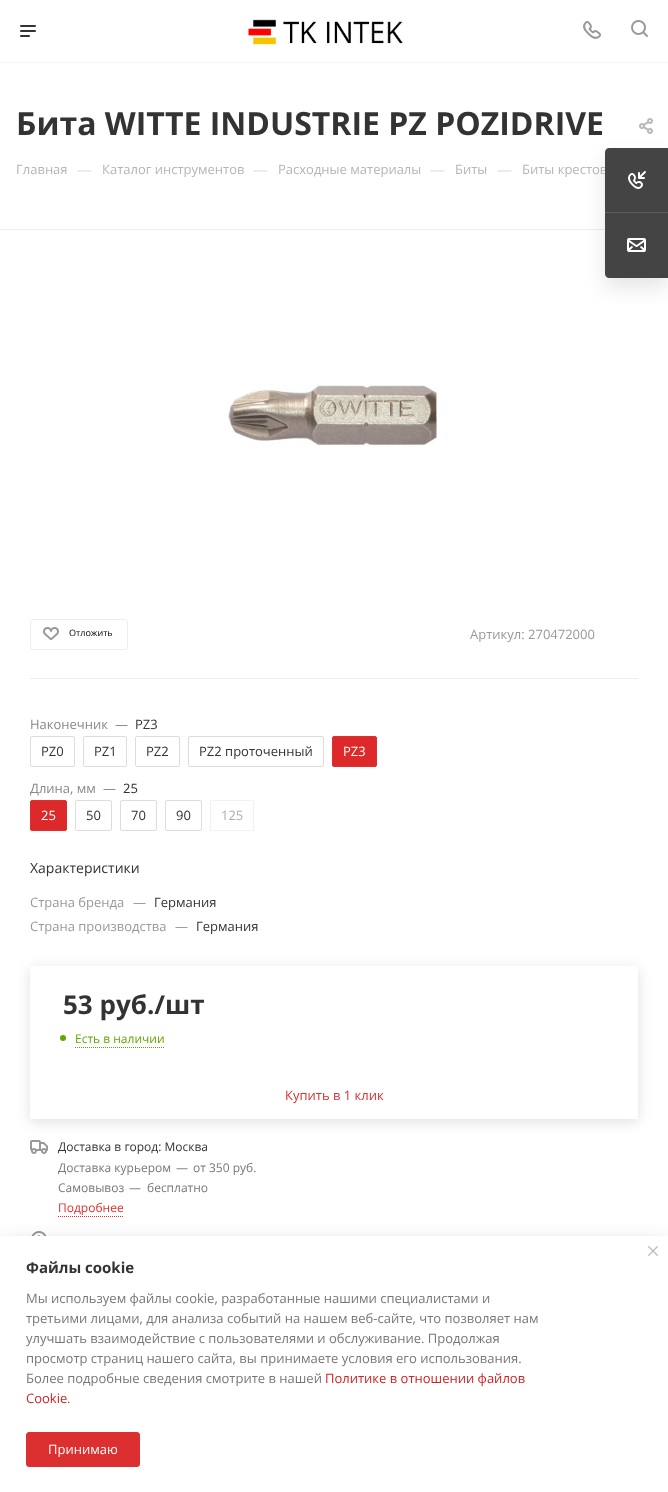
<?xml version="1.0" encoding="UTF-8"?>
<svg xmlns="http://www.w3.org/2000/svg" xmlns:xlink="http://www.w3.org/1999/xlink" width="668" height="1492">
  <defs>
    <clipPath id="clip1"><path d="M 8 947 h 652 v 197 h -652 z m 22 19 h 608 v 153 h -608 z" clip-rule="evenodd" /></clipPath>
  </defs>
  <rect width="100%" height="100%" fill="#ffffff" />
  <rect y="62" width="668" height="1" fill="#f5f5f5" />
  <image x="20" y="25" width="16" height="12" xlink:href="image1.png" />
  <image x="248" y="19" width="155" height="26" xlink:href="image2.png" />
  <image x="583" y="21" width="18" height="18" xlink:href="image3.png" />
  <image x="631" y="20" width="17" height="17" xlink:href="image4.png" />
  <image x="639" y="118" width="14" height="16" xlink:href="image5.png" />
  <rect y="229" width="605" height="1" fill="#ececec" />
  <image x="228" y="385" width="210" height="60" xlink:href="image6.png" />
  <rect x="30" y="678" width="608" height="1" fill="#ececec" />
  <rect x="30.5" y="619.5" width="97" height="30" rx="2.5" fill="none" stroke="#eeeeee" />
  <image x="43" y="627" width="16" height="13" xlink:href="image7.png" />
  <rect x="30.5" y="736.5" width="44" height="30" rx="1.5" fill="none" stroke="#dddddd" />
  <rect x="83.5" y="736.5" width="43" height="30" rx="1.5" fill="none" stroke="#dddddd" />
  <rect x="135.5" y="736.5" width="44" height="30" rx="1.5" fill="none" stroke="#dddddd" />
  <rect x="188.5" y="736.5" width="135" height="30" rx="1.5" fill="none" stroke="#dddddd" />
  <rect x="332.5" y="736.5" width="44" height="30" rx="1.5" fill="#dd2929" stroke="#dc2f2f" />
  <rect x="30.5" y="800.5" width="36" height="30" rx="1.5" fill="#dd2929" stroke="#dc2f2f" />
  <rect x="75.5" y="800.5" width="36" height="30" rx="1.5" fill="none" stroke="#dddddd" />
  <rect x="120.5" y="800.5" width="36" height="30" rx="1.5" fill="none" stroke="#dddddd" />
  <rect x="165.5" y="800.5" width="36" height="30" rx="1.5" fill="none" stroke="#dddddd" />
  <rect x="210.5" y="800.5" width="43" height="30" rx="1.5" fill="none" stroke="#f1f1f1" />
  <g clip-path="url(#clip1)">
    <rect x="30" y="969" width="608" height="153" fill="#000000" fill-opacity="0.12" filter="blur(7px)" />
  </g>
  <circle cx="63" cy="1038" r="3" fill="#5fa800" />
  <path d="M 75 1047.5 h 90" fill="none" stroke="#5fa800" stroke-dasharray="1 1" />
  <image x="30" y="1140" width="18" height="14" xlink:href="image8.png" />
  <path d="M 58 1216.5 h 66" fill="none" stroke="#dc2f2f" stroke-dasharray="1 1" />
  <image x="31" y="1231" width="16" height="5" xlink:href="image9.png" />
  <rect x="605" y="158" width="63" height="130" rx="4" fill="#000000" fill-opacity="0.1" filter="blur(10px)" />
  <rect y="1241" width="668" height="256" fill="#000000" fill-opacity="0.12" filter="blur(10px)" />
  <rect y="1236" width="668" height="256" fill="#ffffff" />
  <image x="648" y="1246" width="10" height="10" xlink:href="image12.png" />
  <rect x="26.5" y="1432.5" width="113" height="34" rx="2.5" fill="#dc2f2f" stroke="#dc2f2f" />
  <text x="16" y="135" style="font-family: Open Sans; font-size: 32px; font-weight: bold; fill: #333333">Бита WITTE INDUSTRIE PZ POZIDRIVE</text>
  <text x="16" y="174" style="font-family: Open Sans; font-size: 13px; fill: #b6b5b5">Главная</text>
  <text x="77" y="175" style="font-family: Open Sans; font-size: 15px; fill: #dddddd">—</text>
  <text x="102" y="174" style="font-family: Open Sans; font-size: 13px; fill: #b6b5b5">Каталог инструментов</text>
  <text x="253" y="175" style="font-family: Open Sans; font-size: 15px; fill: #dddddd">—</text>
  <text x="278" y="174" style="font-family: Open Sans; font-size: 13px; fill: #b6b5b5">Расходные материалы</text>
  <text x="430" y="175" style="font-family: Open Sans; font-size: 15px; fill: #dddddd">—</text>
  <text x="455" y="174" style="font-family: Open Sans; font-size: 13px; fill: #b6b5b5">Биты</text>
  <text x="497" y="175" style="font-family: Open Sans; font-size: 15px; fill: #dddddd">—</text>
  <text x="522" y="174" style="font-family: Open Sans; font-size: 13px; fill: #b6b5b5">Биты крестов</text>
  <text x="69" y="636" style="font-family: Open Sans; font-size: 9px; fill: #000000">Отложить</text>
  <text x="470" y="639" style="font-family: Open Sans; font-size: 13px; fill: #999999">Артикул: 270472000</text>
  <text x="30" y="729" style="font-family: Open Sans; font-size: 13px; fill: #888888">Наконечник</text>
  <text x="115" y="729" style="font-family: Open Sans; font-size: 13px; fill: #888888">—</text>
  <text x="135" y="729" style="font-family: Open Sans; font-size: 13px; fill: #333333">PZ3</text>
  <text x="41" y="756" style="font-family: Open Sans; font-size: 13px; fill: #333333">PZ0</text>
  <text x="94" y="756" style="font-family: Open Sans; font-size: 13px; fill: #333333">PZ1</text>
  <text x="146" y="756" style="font-family: Open Sans; font-size: 13px; fill: #333333">PZ2</text>
  <text x="199" y="756" style="font-family: Open Sans; font-size: 13px; fill: #333333">PZ2 проточенный</text>
  <text x="343" y="756" style="font-family: Open Sans; font-size: 13px; fill: #ffffff">PZ3</text>
  <text x="30" y="793" style="font-family: Open Sans; font-size: 13px; fill: #888888">Длина, мм</text>
  <text x="103" y="793" style="font-family: Open Sans; font-size: 13px; fill: #888888">—</text>
  <text x="123" y="793" style="font-family: Open Sans; font-size: 13px; fill: #333333">25</text>
  <text x="41" y="820" style="font-family: Open Sans; font-size: 13px; fill: #ffffff">25</text>
  <text x="86" y="820" style="font-family: Open Sans; font-size: 13px; fill: #333333">50</text>
  <text x="131" y="820" style="font-family: Open Sans; font-size: 13px; fill: #333333">70</text>
  <text x="176" y="820" style="font-family: Open Sans; font-size: 13px; fill: #333333">90</text>
  <text x="221" y="820" style="font-family: Open Sans; font-size: 13px; fill: #adadad">125</text>
  <text x="30" y="873" style="font-family: Open Sans; font-size: 14px; fill: #333333">Характеристики</text>
  <text x="30" y="907" style="font-family: Open Sans; font-size: 13px; fill: #999999">Страна бренда</text>
  <text x="133" y="907" style="font-family: Open Sans; font-size: 13px; fill: #999999">—</text>
  <text x="154" y="907" style="font-family: Open Sans; font-size: 13px; fill: #333333">Германия</text>
  <text x="30" y="931" style="font-family: Open Sans; font-size: 13px; fill: #999999">Страна производства</text>
  <text x="175" y="931" style="font-family: Open Sans; font-size: 13px; fill: #999999">—</text>
  <text x="196" y="931" style="font-family: Open Sans; font-size: 13px; fill: #333333">Германия</text>
  <text x="63" y="1014" style="font-family: Open Sans; font-size: 26px; font-weight: bold; fill: #333333">53 руб./шт</text>
  <text x="75" y="1043" style="font-family: Open Sans; font-size: 12px; fill: #5fa800">Есть в наличии</text>
  <text x="285" y="1100" style="font-family: Open Sans; font-size: 13px; fill: #dc2f2f">Купить в 1 клик</text>
  <text x="58" y="1151" style="font-family: Open Sans; font-size: 12px; fill: #333333">Доставка в город: Москва</text>
  <text x="58" y="1172" style="font-family: Open Sans; font-size: 12px; fill: #777777">Доставка курьером</text>
  <text x="176" y="1172" style="font-family: Open Sans; font-size: 12px; fill: #777777">—</text>
  <text x="193" y="1172" style="font-family: Open Sans; font-size: 12px; fill: #777777">от 350 руб.</text>
  <text x="58" y="1192" style="font-family: Open Sans; font-size: 12px; fill: #777777">Самовывоз</text>
  <text x="129" y="1192" style="font-family: Open Sans; font-size: 12px; fill: #777777">—</text>
  <text x="147" y="1192" style="font-family: Open Sans; font-size: 12px; fill: #777777">бесплатно</text>
  <text x="58" y="1212" style="font-family: Open Sans; font-size: 12px; fill: #dc2f2f">Подробнее</text>
  <path d="M 609 148 h 59 v 130 h -59 c -2 0 -4 -2 -4 -4 v -122 c 0 -2 2 -4 4 -4 z" fill="#444444" />
  <rect x="605" y="212" width="63" height="1" fill="#5d5d5d" />
  <image x="628" y="171" width="18" height="18" xlink:href="image10.png" />
  <image x="627" y="238" width="19" height="14" xlink:href="image11.png" />
  <text x="26" y="1273" style="font-family: Open Sans; font-size: 15px; font-weight: bold; fill: #333333">Файлы cookie</text>
  <text x="26" y="1303" style="font-family: Open Sans; font-size: 13px; fill: #777777">Мы используем файлы cookie, разработанные нашими специалистами и</text>
  <text x="26" y="1323" style="font-family: Open Sans; font-size: 13px; fill: #777777">третьими лицами, для анализа событий на нашем веб-сайте, что позволяет нам</text>
  <text x="26" y="1343" style="font-family: Open Sans; font-size: 13px; fill: #777777">улучшать взаимодействие с пользователями и обслуживание. Продолжая</text>
  <text x="26" y="1363" style="font-family: Open Sans; font-size: 13px; fill: #777777">просмотр страниц нашего сайта, вы принимаете условия его использования.</text>
  <text x="26" y="1383" style="font-family: Open Sans; font-size: 13px; fill: #777777">Более подробные сведения смотрите в нашей</text>
  <text x="325" y="1383" style="font-family: Open Sans; font-size: 13px; fill: #d02222">Политике в отношении файлов</text>
  <text x="26" y="1403" style="font-family: Open Sans; font-size: 13px; fill: #d02222">Cookie</text>
  <text x="67" y="1403" style="font-family: Open Sans; font-size: 13px; fill: #777777">.</text>
  <text x="48" y="1454" style="font-family: Open Sans; font-size: 13px; fill: #ffffff">Принимаю</text>
</svg>
